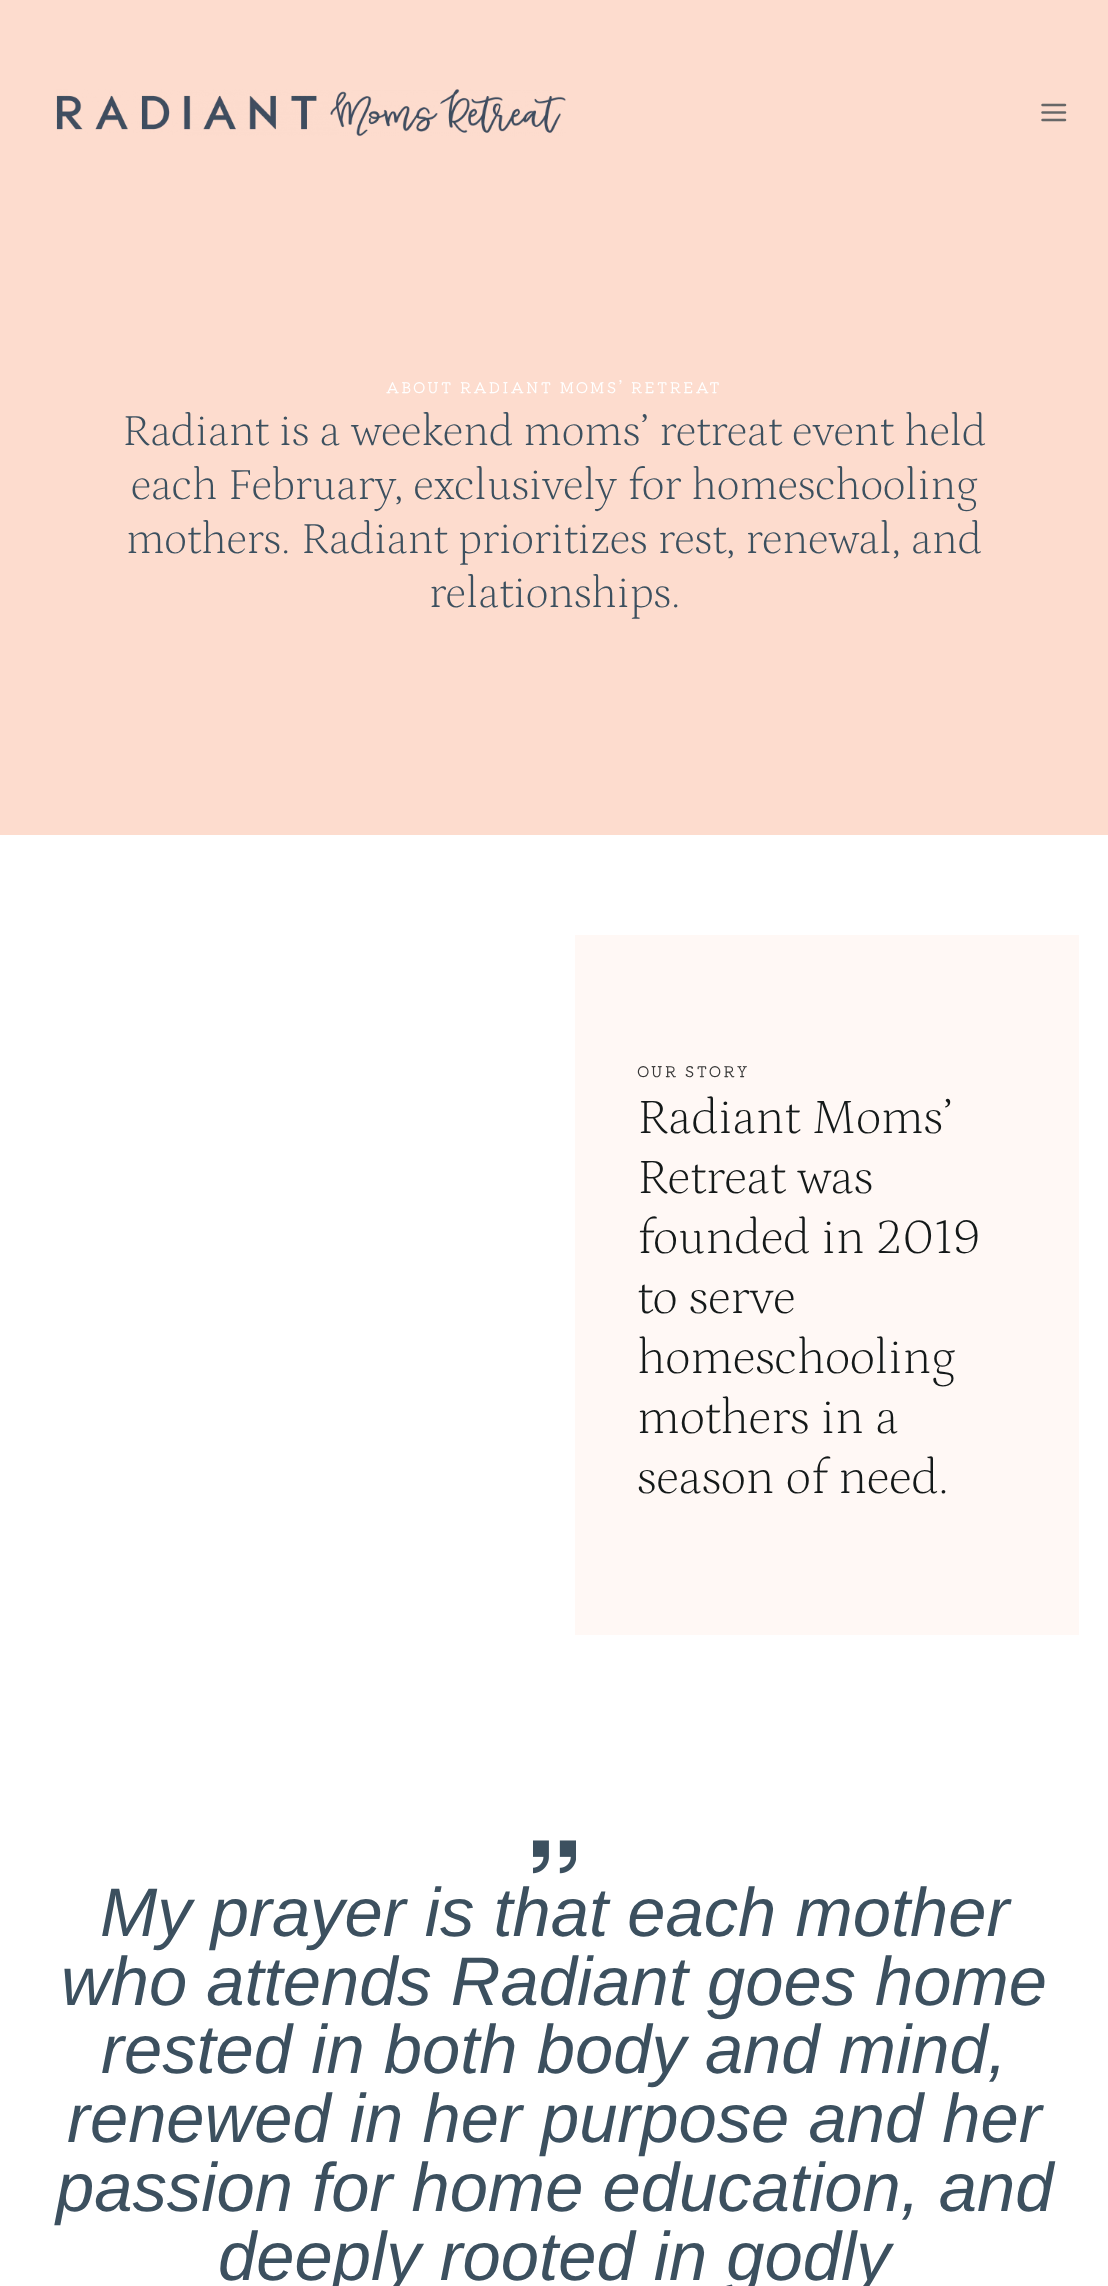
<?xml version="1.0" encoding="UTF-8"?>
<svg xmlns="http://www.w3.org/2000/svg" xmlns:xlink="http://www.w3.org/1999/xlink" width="1108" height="2286">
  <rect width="100%" height="100%" fill="#ffffff" />
  <rect width="1108" height="835" fill="#fddcce" />
  <image x="56" y="89" width="510" height="48" xlink:href="image1.png" />
  <image x="1041" y="103" width="26" height="19" xlink:href="image2.png" />
  <rect x="575" y="935" width="504" height="700" fill="#fff8f5" />
  <image x="533" y="1840" width="43" height="34" xlink:href="image3.png" />
  <text x="386" y="393" style="font-family: Kiwi Maru; font-size: 15px; letter-spacing: 2.5px; fill: #ffffff">ABOUT RADIANT MOMS’ RETREAT</text>
  <text x="122" y="445" style="font-family: Petrona; font-size: 45px; font-weight: 200; fill: #3c505f">Radiant is a weekend moms’ retreat event held</text>
  <text x="131" y="499" style="font-family: Petrona; font-size: 45px; font-weight: 200; fill: #3c505f">each February, exclusively for homeschooling</text>
  <text x="126" y="553" style="font-family: Petrona; font-size: 45px; font-weight: 200; fill: #3c505f">mothers. Radiant prioritizes rest, renewal, and</text>
  <text x="429" y="607" style="font-family: Petrona; font-size: 45px; font-weight: 200; fill: #3c505f">relationships.</text>
  <text x="637" y="1077" style="font-family: Kiwi Maru; font-size: 15px; letter-spacing: 2.5px; fill: #363636">OUR STORY</text>
  <text x="637" y="1133" style="font-family: Petrona; font-size: 50px; font-weight: 200; fill: #141919">Radiant Moms’</text>
  <text x="637" y="1193" style="font-family: Petrona; font-size: 50px; font-weight: 200; fill: #141919">Retreat was</text>
  <text x="637" y="1253" style="font-family: Petrona; font-size: 50px; font-weight: 200; fill: #141919">founded in 2019</text>
  <text x="637" y="1313" style="font-family: Petrona; font-size: 50px; font-weight: 200; fill: #141919">to serve</text>
  <text x="637" y="1373" style="font-family: Petrona; font-size: 50px; font-weight: 200; fill: #141919">homeschooling</text>
  <text x="637" y="1433" style="font-family: Petrona; font-size: 50px; font-weight: 200; fill: #141919">mothers in a</text>
  <text x="637" y="1493" style="font-family: Petrona; font-size: 50px; font-weight: 200; fill: #141919">season of need.</text>
  <text x="100" y="1936" style="font-family: Liberation Sans; font-size: 68.75px; font-style: italic; fill: #3c505f">My prayer is that each mother</text>
  <text x="61" y="2005" style="font-family: Liberation Sans; font-size: 68.75px; font-style: italic; fill: #3c505f">who attends Radiant goes home</text>
  <text x="101" y="2073" style="font-family: Liberation Sans; font-size: 68.75px; font-style: italic; fill: #3c505f">rested in both body and mind,</text>
  <text x="67" y="2142" style="font-family: Liberation Sans; font-size: 68.75px; font-style: italic; fill: #3c505f">renewed in her purpose and her</text>
  <text x="56" y="2211" style="font-family: Liberation Sans; font-size: 68.75px; font-style: italic; fill: #3c505f">passion for home education, and</text>
  <text x="218" y="2280" style="font-family: Liberation Sans; font-size: 68.75px; font-style: italic; fill: #3c505f">deeply rooted in godly</text>
</svg>
